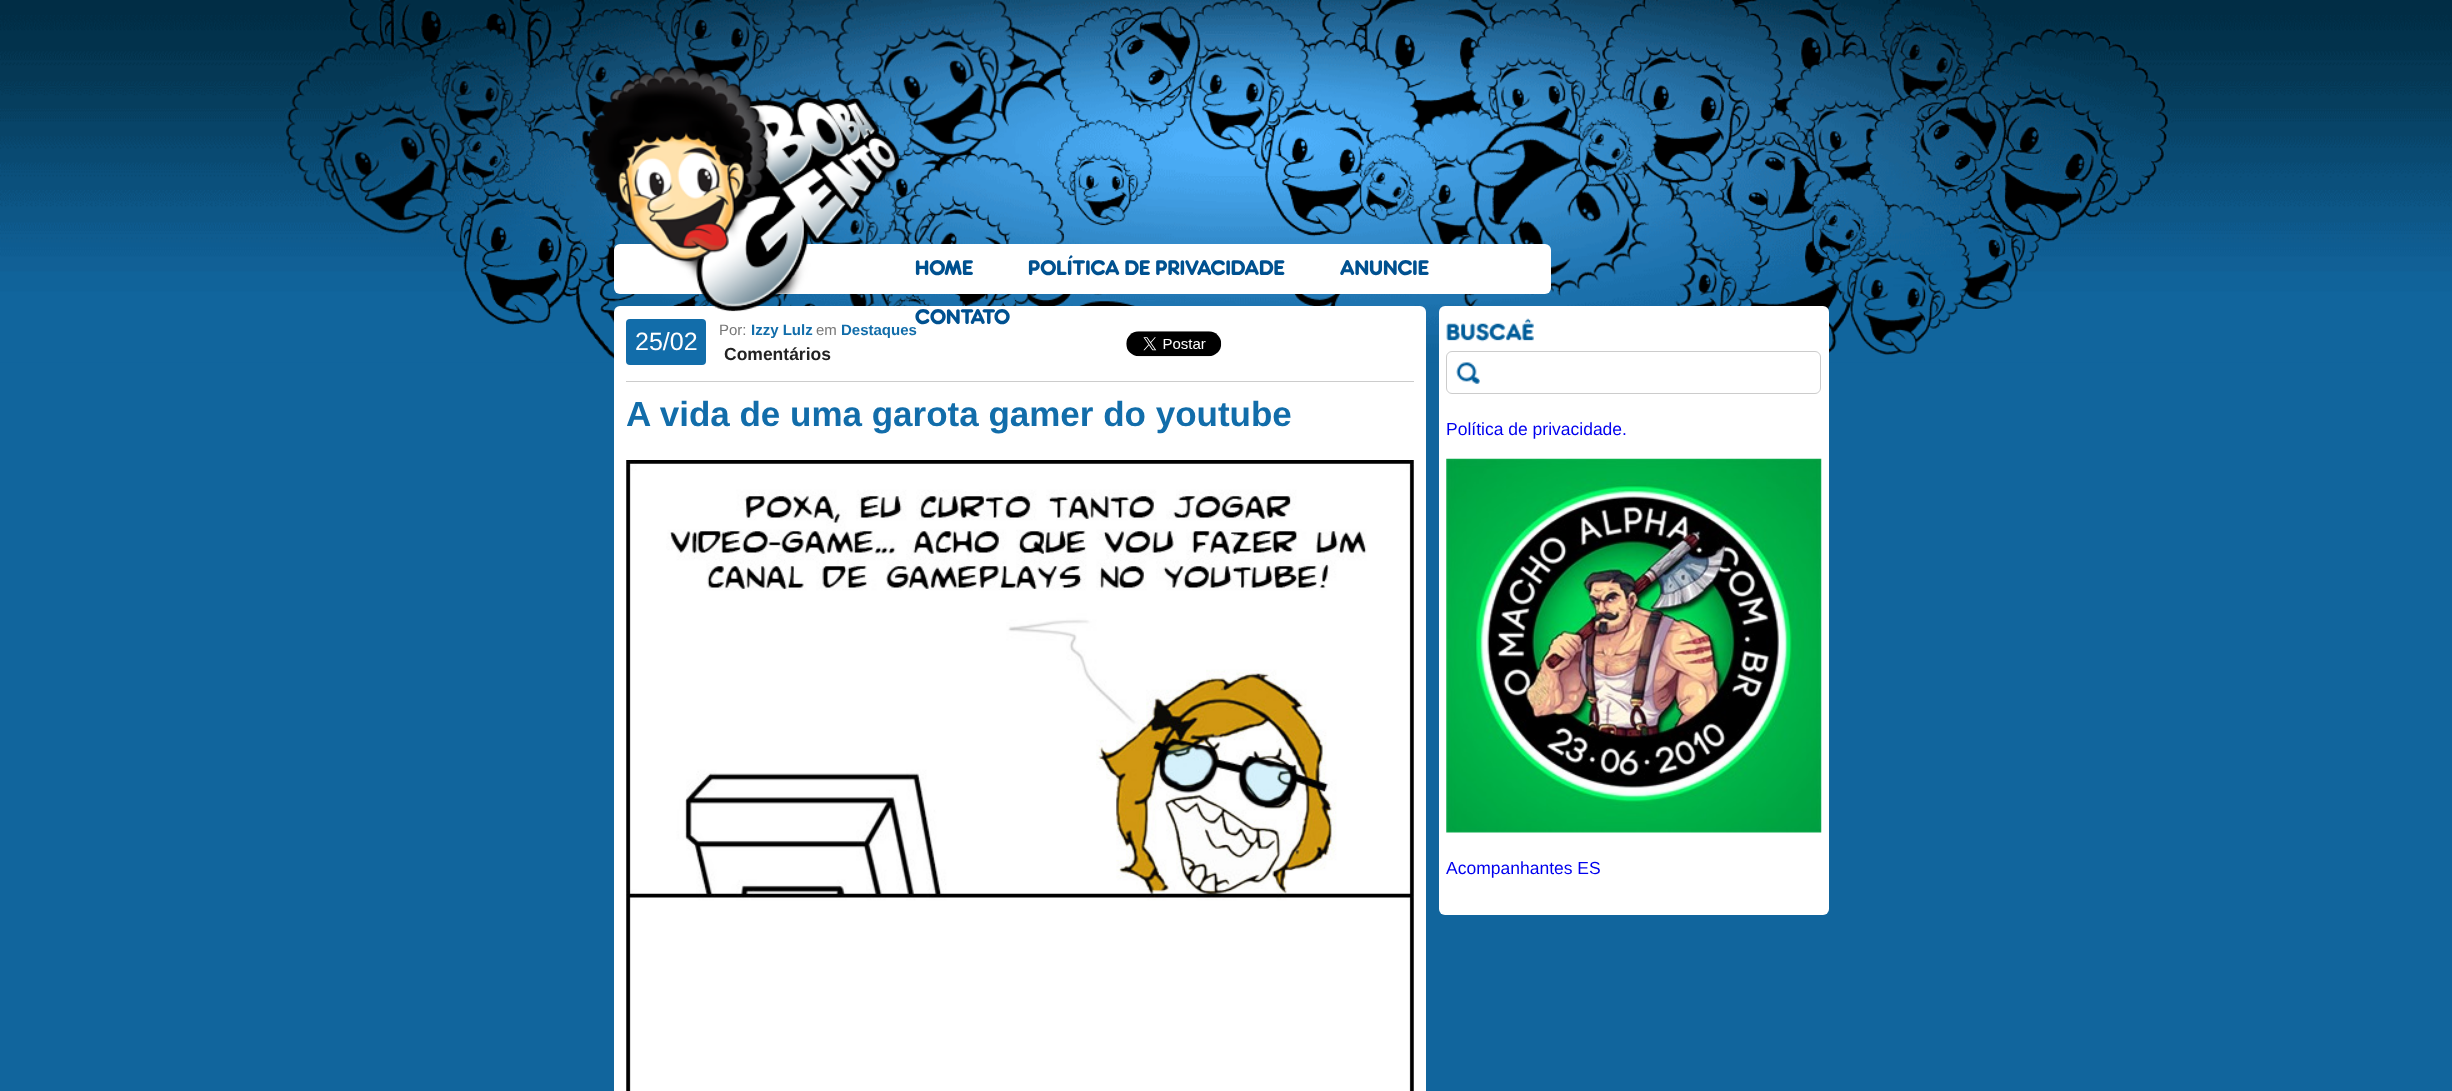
<?xml version="1.0" encoding="UTF-8"?>
<svg xmlns="http://www.w3.org/2000/svg" xmlns:xlink="http://www.w3.org/1999/xlink" width="2452" height="1091">
  <rect width="100%" height="100%" fill="#11659d" />
  <image x="0" y="0" width="2452" height="363" xlink:href="image1.png" />
  <rect x="614" y="244" width="937" height="50" rx="6" fill="#ffffff" />
  <rect x="614" y="306" width="812" height="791" rx="6" fill="#ffffff" />
  <image x="588" y="66" width="313" height="246" xlink:href="image2.png" />
  <rect x="626" y="319" width="80" height="46" rx="4" fill="#126daa" />
  <image x="1126" y="331" width="96" height="26" xlink:href="image3.png" />
  <rect x="626" y="381" width="788" height="1" fill="#cccccc" />
  <image x="626" y="460" width="788" height="631" xlink:href="image4.png" />
  <rect x="1439" y="306" width="390" height="609" rx="6" fill="#ffffff" />
  <image x="1446" y="318" width="88" height="24" xlink:href="image5.png" />
  <rect x="1446.5" y="351.5" width="374" height="42" rx="5.5" fill="none" stroke="#cccccc" />
  <image x="1456" y="362" width="24" height="22" xlink:href="image6.png" />
  <image x="1446" y="458" width="376" height="375" xlink:href="image7.png" />
  <text x="915" y="275" style="font-family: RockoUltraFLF; font-size: 21.25px; font-weight: 500; fill: #005190">HOME</text>
  <text x="1028" y="275" style="font-family: RockoUltraFLF; font-size: 21.25px; font-weight: 500; fill: #005190">POLÍTICA DE PRIVACIDADE</text>
  <text x="1340" y="275" style="font-family: RockoUltraFLF; font-size: 21.25px; font-weight: 500; fill: #005190">ANUNCIE</text>
  <text x="915" y="324" style="font-family: RockoUltraFLF; font-size: 21.25px; font-weight: 500; fill: #005190">CONTATO</text>
  <text x="635" y="350" style="font-family: Liberation Sans; font-size: 25px; fill: #ffffff">25/02</text>
  <text x="719" y="335" style="font-family: Liberation Sans; font-size: 15px; fill: #777777">Por:</text>
  <text x="751" y="335" style="font-family: Liberation Sans; font-size: 15px; font-weight: bold; fill: #126daa">Izzy Lulz</text>
  <text x="816" y="335" style="font-family: Liberation Sans; font-size: 15px; fill: #777777">em</text>
  <text x="841" y="335" style="font-family: Liberation Sans; font-size: 15px; font-weight: bold; fill: #126daa">Destaques</text>
  <text x="724" y="360" style="font-family: Liberation Sans; font-size: 17.5px; font-weight: bold; fill: #222222">Comentários</text>
  <text x="626" y="426" style="font-family: Liberation Sans; font-size: 35px; font-weight: bold; fill: #126daa">A vida de uma garota gamer do youtube</text>
  <text x="1446" y="435" style="font-family: Liberation Sans; font-size: 17.5px; fill: #0000ee">Política de privacidade.</text>
  <text x="1446" y="874" style="font-family: Liberation Sans; font-size: 17.5px; fill: #0000ee">Acompanhantes ES</text>
</svg>
